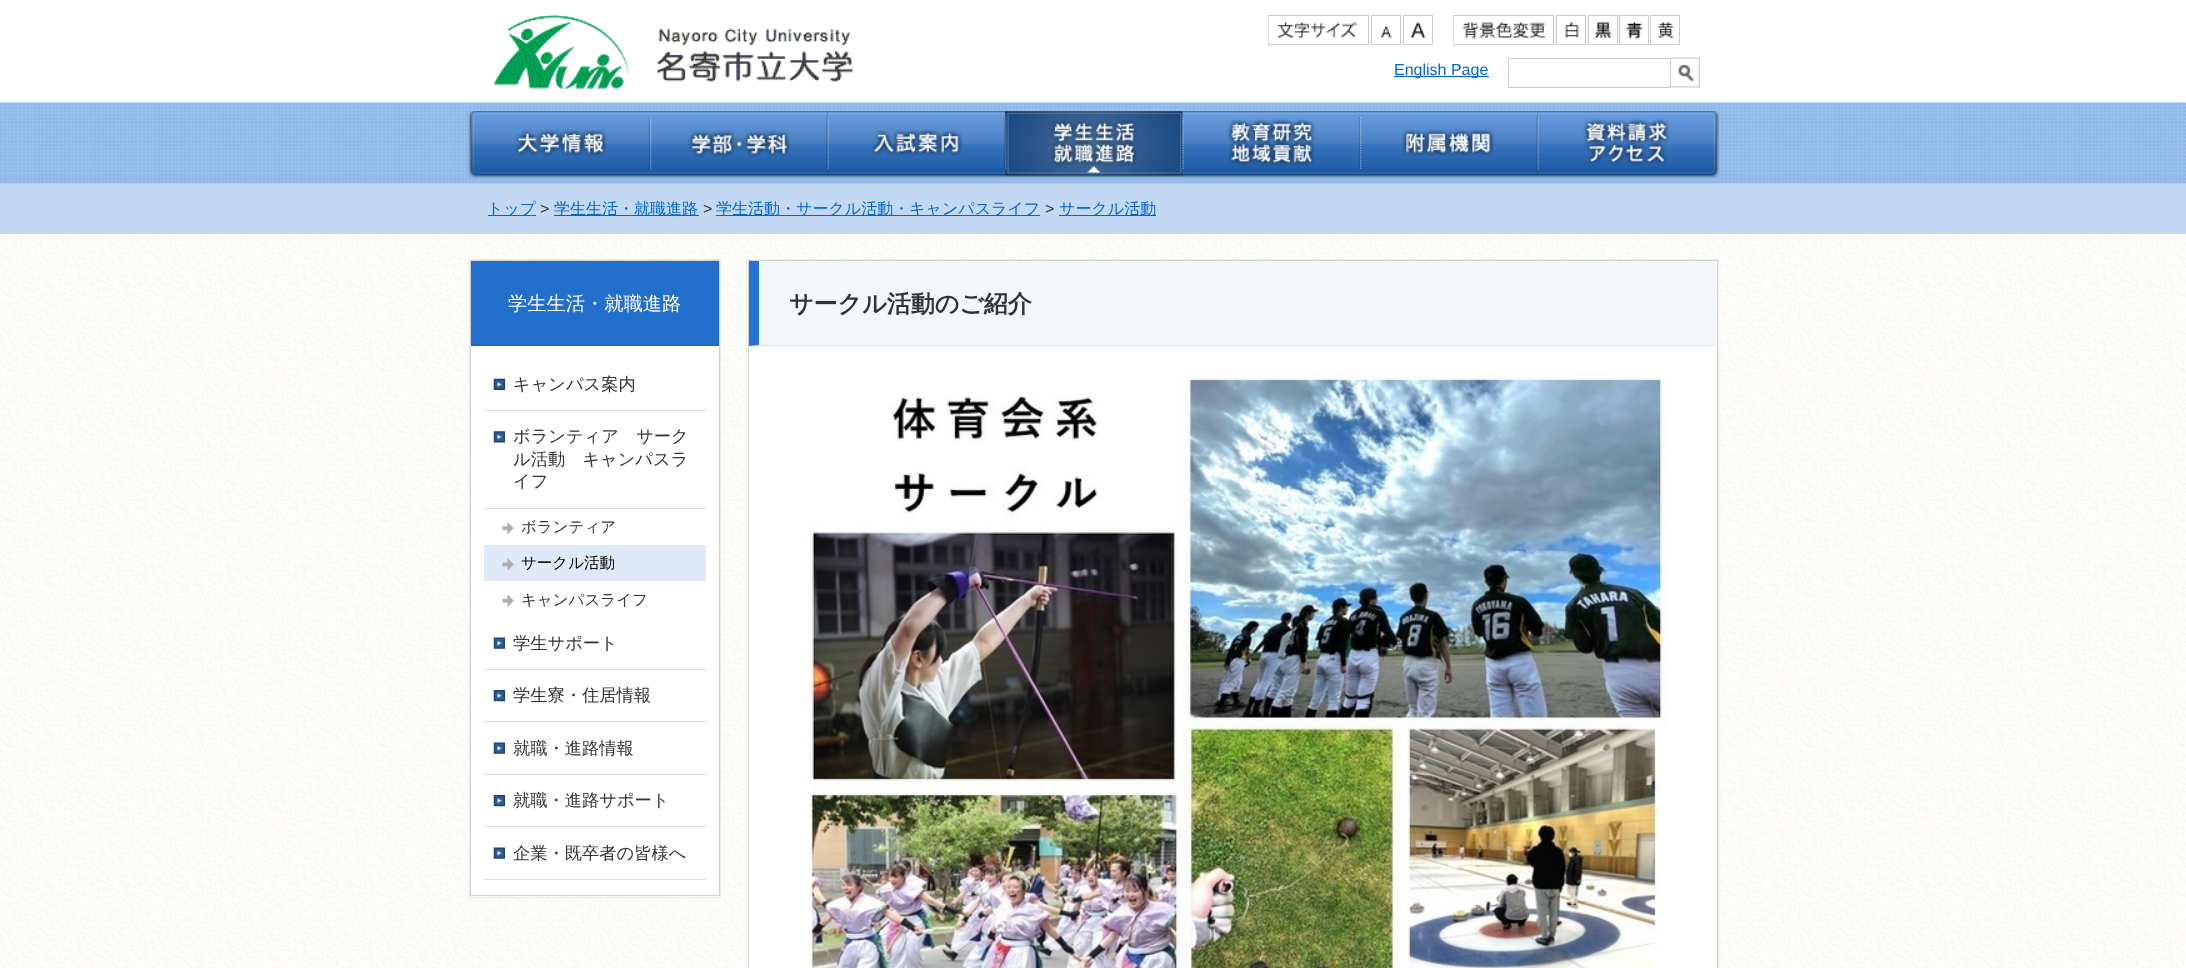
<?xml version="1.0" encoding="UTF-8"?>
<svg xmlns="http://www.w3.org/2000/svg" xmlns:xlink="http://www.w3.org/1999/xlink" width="2186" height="968">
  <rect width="100%" height="100%" fill="#ffffff" />
  <image x="0" y="234" width="2186" height="734" xlink:href="image1.png" />
  <image x="493" y="14" width="360" height="75" xlink:href="image2.png" />
  <rect x="1268.5" y="15.5" width="100" height="29" fill="none" stroke="#cccccc" />
  <image x="1268" y="16" width="89" height="28" xlink:href="image3.png" />
  <rect x="1371.5" y="15.5" width="29" height="29" fill="none" stroke="#cccccc" />
  <image x="1381" y="26" width="11" height="12" xlink:href="image4.png" />
  <rect x="1403.5" y="15.5" width="29" height="29" fill="none" stroke="#cccccc" />
  <image x="1411" y="22" width="15" height="16" xlink:href="image5.png" />
  <rect x="1453.5" y="15.5" width="100" height="29" fill="none" stroke="#cccccc" />
  <image x="1453" y="16" width="93" height="28" xlink:href="image6.png" />
  <rect x="1556.5" y="15.5" width="29" height="29" fill="none" stroke="#cccccc" />
  <image x="1565" y="22" width="14" height="16" xlink:href="image7.png" />
  <rect x="1588.5" y="15.5" width="29" height="29" fill="none" stroke="#cccccc" />
  <image x="1595" y="22" width="17" height="17" xlink:href="image8.png" />
  <rect x="1619.5" y="15.5" width="29" height="29" fill="none" stroke="#cccccc" />
  <image x="1626" y="22" width="17" height="17" xlink:href="image9.png" />
  <rect x="1650.5" y="15.5" width="29" height="29" fill="none" stroke="#cccccc" />
  <image x="1657" y="22" width="17" height="17" xlink:href="image10.png" />
  <rect x="1394" y="76" width="95" height="1" fill="#0066cc" />
  <rect x="1508.5" y="58.5" width="162" height="29" fill="none" stroke="#cccccc" />
  <image x="1671" y="57" width="29" height="31" xlink:href="image11.png" />
  <image x="0" y="102" width="2186" height="82" xlink:href="image12.png" />
  <image x="468" y="111" width="1251" height="67" xlink:href="image13.png" />
  <image x="468" y="111" width="182" height="67" xlink:href="image14.png" />
  <image x="650" y="111" width="178" height="67" xlink:href="image15.png" />
  <image x="827" y="111" width="178" height="67" xlink:href="image16.png" />
  <image x="1182" y="111" width="178" height="67" xlink:href="image17.png" />
  <image x="1360" y="111" width="178" height="67" xlink:href="image18.png" />
  <image x="1537" y="111" width="182" height="67" xlink:href="image19.png" />
  <rect y="184" width="2186" height="50" fill="#c3d9f3" />
  <rect x="488" y="215" width="48" height="1" fill="#0066cc" />
  <rect x="554" y="215" width="145" height="1" fill="#0066cc" />
  <rect x="716" y="215" width="324" height="1" fill="#0066cc" />
  <rect x="1059" y="215" width="97" height="1" fill="#0066cc" />
  <rect x="469.5" y="259.5" width="251" height="638" fill="none" stroke="#eeeee8" />
  <rect x="471" y="346" width="248" height="549" fill="#ffffff" />
  <rect x="470.5" y="260.5" width="249" height="635" fill="none" stroke="#d2d2d2" />
  <rect x="471" y="261" width="248" height="84" fill="#226fcc" />
  <rect x="471" y="345" width="248" height="1" fill="#3c5c88" />
  <image x="493" y="378" width="12" height="12" xlink:href="image20.png" />
  <rect x="484" y="410" width="222" height="1" fill="#dddddd" />
  <image x="493" y="431" width="12" height="12" xlink:href="image21.png" />
  <rect x="484" y="508" width="222" height="1" fill="#dddddd" />
  <image x="502" y="522" width="12" height="12" xlink:href="image22.png" />
  <rect x="484" y="545" width="222" height="36" fill="#deeaf7" />
  <image x="502" y="558" width="12" height="12" xlink:href="image23.png" />
  <image x="502" y="595" width="12" height="12" xlink:href="image24.png" />
  <image x="493" y="637" width="12" height="12" xlink:href="image25.png" />
  <rect x="484" y="669" width="222" height="1" fill="#dddddd" />
  <image x="493" y="690" width="12" height="12" xlink:href="image26.png" />
  <rect x="484" y="721" width="222" height="1" fill="#dddddd" />
  <image x="493" y="742" width="12" height="12" xlink:href="image25.png" />
  <rect x="484" y="774" width="222" height="1" fill="#dddddd" />
  <image x="493" y="795" width="12" height="12" xlink:href="image26.png" />
  <rect x="484" y="826" width="222" height="1" fill="#dddddd" />
  <image x="493" y="847" width="12" height="12" xlink:href="image25.png" />
  <rect x="484" y="879" width="222" height="1" fill="#dddddd" />
  <rect x="747" y="260" width="970" height="708" fill="#ffffff" />
  <rect x="746.5" y="259.5" width="972" height="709" fill="none" stroke="#eeeee8" />
  <rect x="748.5" y="260.5" width="969" height="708" fill="none" stroke="#d2d2d2" />
  <rect x="749" y="261" width="967" height="85" fill="#f4f7fa" />
  <path d="M 1716 346 h -967 l 10 -1 h 957 z" fill="#e5e5e5" />
  <path d="M 749 346 v -85 h 10 v 84 z" fill="#2273d5" />
  <image x="795" y="371" width="875" height="597" xlink:href="image27.png" />
  <text x="1394" y="75" style="font-family: Liberation Sans; font-size: 16px; fill: #0066cc">English Page</text>
  <text x="487" y="214" style="font-family: WenQuanYi Zen Hei; font-size: 16px; font-weight: 500; fill: #0066cc">トップ</text>
  <text x="540" y="214" style="font-family: Liberation Sans; font-size: 16px; fill: #333333">&gt;</text>
  <text x="554" y="214" style="font-family: WenQuanYi Zen Hei; font-size: 16px; font-weight: 500; fill: #0066cc">学生生活・就職進路</text>
  <text x="703" y="214" style="font-family: Liberation Sans; font-size: 16px; fill: #333333">&gt;</text>
  <text x="716" y="214" style="font-family: WenQuanYi Zen Hei; font-size: 16px; font-weight: 500; fill: #0066cc">学生活動・サークル活動・キャンパスライフ</text>
  <text x="1045" y="214" style="font-family: Liberation Sans; font-size: 16px; fill: #333333">&gt;</text>
  <text x="1059" y="214" style="font-family: WenQuanYi Zen Hei; font-size: 16px; font-weight: 500; fill: #0066cc">サークル活動</text>
  <text x="508" y="310" style="font-family: WenQuanYi Zen Hei; font-size: 19.25px; font-weight: 500; fill: #ffffff">学生生活・就職進路</text>
  <text x="513" y="390" style="font-family: WenQuanYi Zen Hei; font-size: 17.25px; font-weight: 500; fill: #333333">キャンパス案内</text>
  <text x="513" y="442" style="font-family: WenQuanYi Zen Hei; font-size: 17.25px; font-weight: 500; fill: #333333">ボランティア　サーク</text>
  <text x="513" y="465" style="font-family: WenQuanYi Zen Hei; font-size: 17.25px; font-weight: 500; fill: #333333">ル活動　キャンパスラ</text>
  <text x="513" y="487" style="font-family: WenQuanYi Zen Hei; font-size: 17.25px; font-weight: 500; fill: #333333">イフ</text>
  <text x="521" y="532" style="font-family: WenQuanYi Zen Hei; font-size: 15.5px; font-weight: 500; fill: #333333">ボランティア</text>
  <text x="521" y="568" style="font-family: WenQuanYi Zen Hei; font-size: 15.5px; font-weight: 500; fill: #000000">サークル活動</text>
  <text x="521" y="605" style="font-family: WenQuanYi Zen Hei; font-size: 15.5px; font-weight: 500; fill: #333333">キャンパスライフ</text>
  <text x="513" y="649" style="font-family: WenQuanYi Zen Hei; font-size: 17.25px; font-weight: 500; fill: #333333">学生サポート</text>
  <text x="513" y="701" style="font-family: WenQuanYi Zen Hei; font-size: 17.25px; font-weight: 500; fill: #333333">学生寮・住居情報</text>
  <text x="513" y="754" style="font-family: WenQuanYi Zen Hei; font-size: 17.25px; font-weight: 500; fill: #333333">就職・進路情報</text>
  <text x="513" y="806" style="font-family: WenQuanYi Zen Hei; font-size: 17.25px; font-weight: 500; fill: #333333">就職・進路サポート</text>
  <text x="513" y="859" style="font-family: WenQuanYi Zen Hei; font-size: 17.25px; font-weight: 500; fill: #333333">企業・既卒者の皆様へ</text>
  <text x="789" y="312" style="font-family: WenQuanYi Zen Hei; font-size: 24px; font-weight: bold; fill: #333333">サークル活動のご紹介</text>
</svg>
